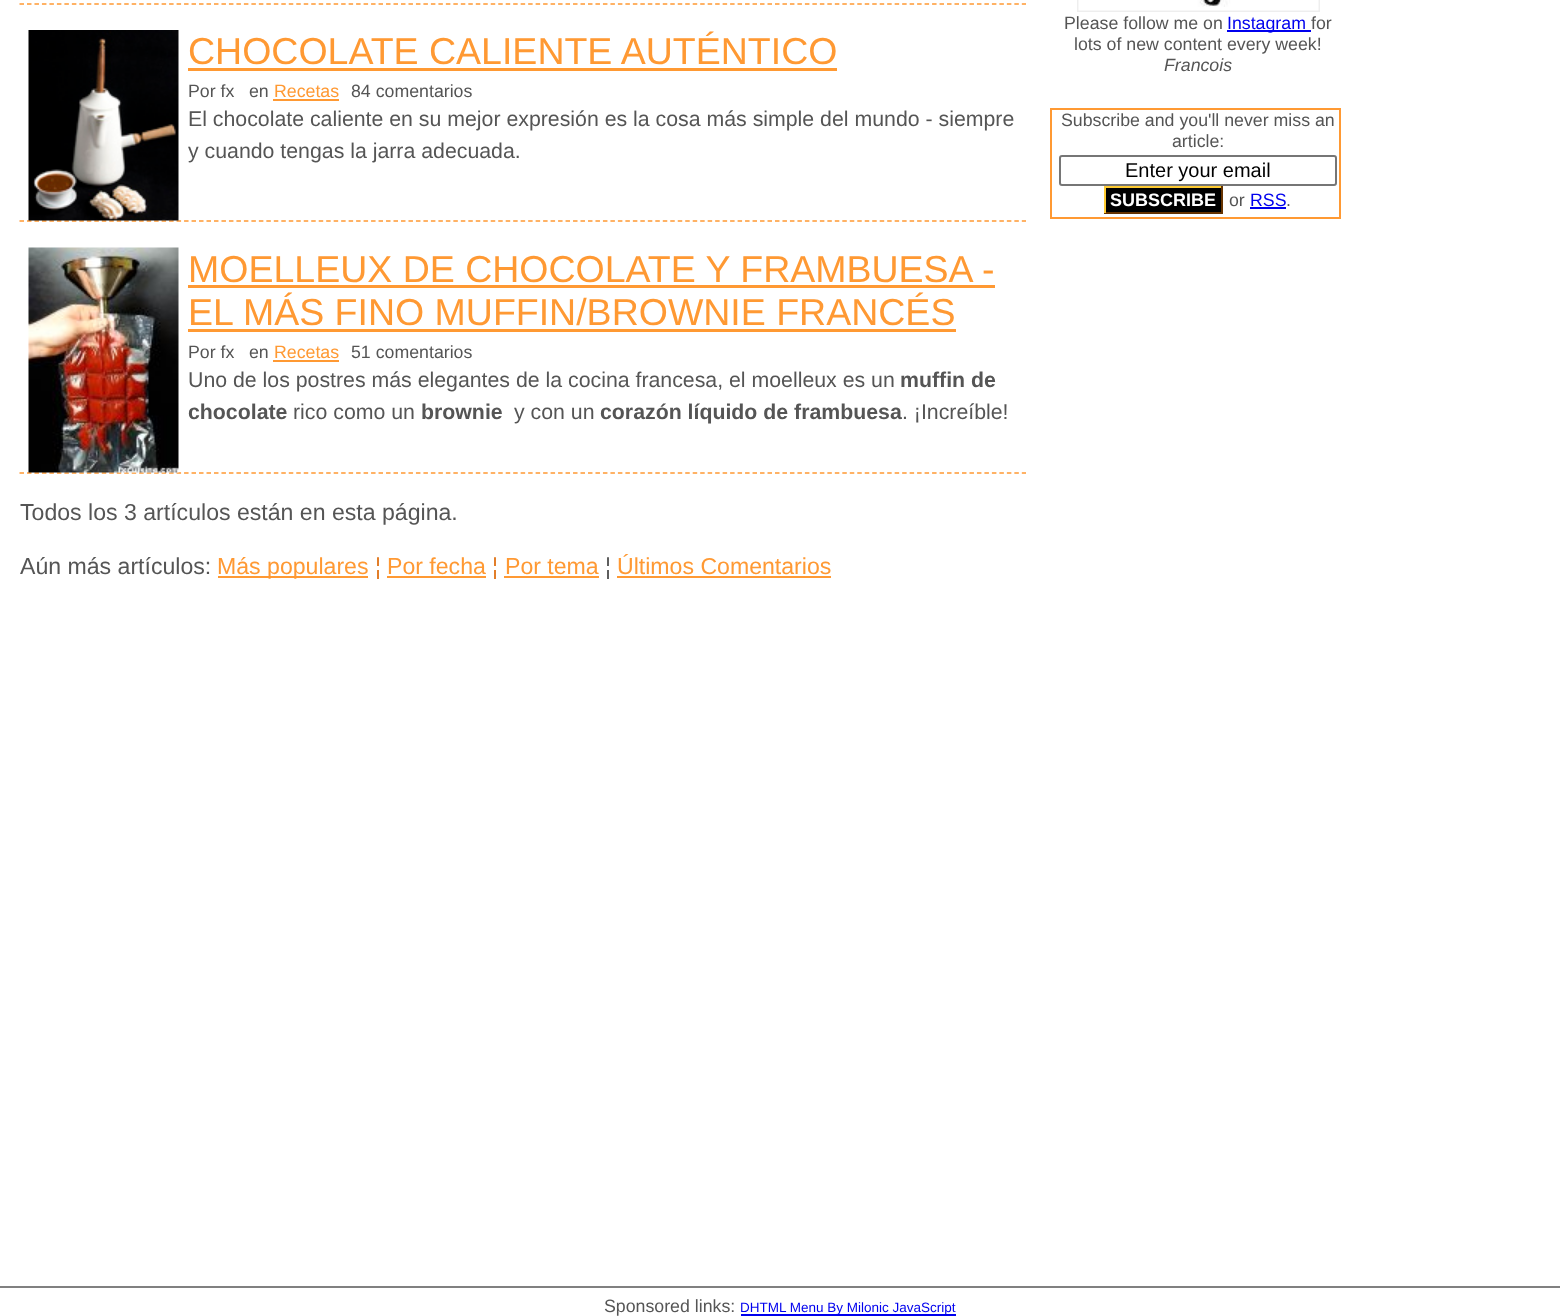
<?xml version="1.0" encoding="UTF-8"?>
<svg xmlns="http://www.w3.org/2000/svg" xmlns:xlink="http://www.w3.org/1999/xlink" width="1560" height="1316">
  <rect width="100%" height="100%" fill="#ffffff" />
  <path d="M 19.5 4 h 1006.5" fill="none" stroke="#ff9933" stroke-width="1.5" stroke-dasharray="4.5 2.98" />
  <path d="M 19.5 221 h 1006.5" fill="none" stroke="#ff9933" stroke-width="1.5" stroke-dasharray="4.5 2.98" />
  <image x="28" y="30" width="151" height="191" xlink:href="image1.png" />
  <rect x="188" y="68" width="649" height="3" fill="#ff9933" />
  <rect x="273" y="99" width="66" height="2" fill="#ff9933" />
  <path d="M 19.5 473 h 1006.5" fill="none" stroke="#ff9933" stroke-width="1.5" stroke-dasharray="4.5 2.98" />
  <image x="28" y="247" width="151" height="226" xlink:href="image2.png" />
  <rect x="188" y="285" width="807" height="3" fill="#ff9933" />
  <rect x="188" y="329" width="768" height="3" fill="#ff9933" />
  <rect x="273" y="360" width="66" height="2" fill="#ff9933" />
  <rect x="218" y="576" width="150" height="2" fill="#ff9933" />
  <rect x="387" y="576" width="99" height="2" fill="#ff9933" />
  <rect x="504" y="576" width="95" height="2" fill="#ff9933" />
  <rect x="617" y="576" width="214" height="2" fill="#ff9933" />
  <rect x="1078" y="-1" width="241" height="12" fill="none" stroke="#eeeeee" stroke-width="2" />
  <image x="1078" y="0" width="241" height="11" xlink:href="image3.png" />
  <rect x="1227" y="30" width="84" height="2" fill="#0000ee" />
  <rect x="1051" y="109" width="289" height="109" fill="none" stroke="#ff9933" stroke-width="2" />
  <rect x="1060" y="156" width="276" height="29" rx="2" fill="none" stroke="#767676" stroke-width="2" />
  <rect x="1106" y="188" width="115" height="24" fill="#000000" />
  <rect x="1104" y="186" width="119" height="2" fill="#ffcc33" />
  <rect x="1221" y="186" width="2" height="27" fill="#663300" />
  <rect x="1104" y="212" width="119" height="2" fill="#663300" />
  <rect x="1104" y="186" width="2" height="27" fill="#ffcc33" />
  <rect x="1250" y="207" width="36" height="2" fill="#0000ee" />
  <rect y="1286" width="1560" height="2" fill="#808080" />
  <rect x="741" y="1314" width="215" height="2" fill="#0000ee" />
  <text x="188" y="64" style="font-family: Liberation Sans; font-size: 37.5px; fill: #ff9933">CHOCOLATE CALIENTE AUTÉNTICO</text>
  <text x="188" y="97" style="font-family: Liberation Sans; font-size: 17.75px; fill: #555555">Por fx</text>
  <text x="249" y="97" style="font-family: Liberation Sans; font-size: 17.75px; fill: #555555">en</text>
  <text x="274" y="97" style="font-family: Liberation Sans; font-size: 17.75px; fill: #ff9933">Recetas</text>
  <text x="351" y="97" style="font-family: Liberation Sans; font-size: 17.75px; fill: #555555">84 comentarios</text>
  <text x="188" y="126" style="font-family: Liberation Sans; font-size: 21.3px; fill: #555555">El chocolate caliente en su mejor expresión es la cosa más simple del mundo - siempre</text>
  <text x="188" y="158" style="font-family: Liberation Sans; font-size: 21.3px; fill: #555555">y cuando tengas la jarra adecuada.</text>
  <text x="188" y="282" style="font-family: Liberation Sans; font-size: 37.5px; fill: #ff9933">MOELLEUX DE CHOCOLATE Y FRAMBUESA -</text>
  <text x="188" y="325" style="font-family: Liberation Sans; font-size: 37.5px; fill: #ff9933">EL MÁS FINO MUFFIN/BROWNIE FRANCÉS</text>
  <text x="188" y="358" style="font-family: Liberation Sans; font-size: 17.75px; fill: #555555">Por fx</text>
  <text x="249" y="358" style="font-family: Liberation Sans; font-size: 17.75px; fill: #555555">en</text>
  <text x="274" y="358" style="font-family: Liberation Sans; font-size: 17.75px; fill: #ff9933">Recetas</text>
  <text x="351" y="358" style="font-family: Liberation Sans; font-size: 17.75px; fill: #555555">51 comentarios</text>
  <text x="188" y="387" style="font-family: Liberation Sans; font-size: 21.3px; fill: #555555">Uno de los postres más elegantes de la cocina francesa, el moelleux es un</text>
  <text x="900" y="387" style="font-family: Liberation Sans; font-size: 21.3px; font-weight: bold; fill: #555555">muffin de</text>
  <text x="188" y="419" style="font-family: Liberation Sans; font-size: 21.3px; font-weight: bold; fill: #555555">chocolate</text>
  <text x="293" y="419" style="font-family: Liberation Sans; font-size: 21.3px; fill: #555555">rico como un</text>
  <text x="421" y="419" style="font-family: Liberation Sans; font-size: 21.3px; font-weight: bold; fill: #555555">brownie</text>
  <text x="514" y="419" style="font-family: Liberation Sans; font-size: 21.3px; fill: #555555">y con un</text>
  <text x="600" y="419" style="font-family: Liberation Sans; font-size: 21.3px; font-weight: bold; fill: #555555">corazón líquido de frambuesa</text>
  <text x="902" y="419" style="font-family: Liberation Sans; font-size: 21.3px; fill: #555555">. ¡Increíble!</text>
  <text x="20" y="520" style="font-family: Liberation Sans; font-size: 23.1px; fill: #555555">Todos los 3 artículos están en esta página.</text>
  <text x="20" y="574" style="font-family: Liberation Sans; font-size: 23.1px; fill: #555555">Aún más artículos:</text>
  <text x="217" y="574" style="font-family: Liberation Sans; font-size: 23.1px; fill: #ff9933">Más populares</text>
  <text x="375" y="574" style="font-family: Liberation Sans; font-size: 23.1px; fill: #e1771e">¦</text>
  <text x="387" y="574" style="font-family: Liberation Sans; font-size: 23.1px; fill: #ff9933">Por fecha</text>
  <text x="492" y="574" style="font-family: Liberation Sans; font-size: 23.1px; fill: #e1771e">¦</text>
  <text x="505" y="574" style="font-family: Liberation Sans; font-size: 23.1px; fill: #ff9933">Por tema</text>
  <text x="605" y="574" style="font-family: Liberation Sans; font-size: 23.1px; fill: #555555">¦</text>
  <text x="617" y="574" style="font-family: Liberation Sans; font-size: 23.1px; fill: #ff9933">Últimos Comentarios</text>
  <text x="1064" y="29" style="font-family: Liberation Sans; font-size: 17.75px; fill: #555555">Please follow me on</text>
  <text x="1227" y="29" style="font-family: Liberation Sans; font-size: 17.75px; fill: #0000ee">Instagram</text>
  <text x="1311" y="29" style="font-family: Liberation Sans; font-size: 17.75px; fill: #555555">for</text>
  <text x="1074" y="50" style="font-family: Liberation Sans; font-size: 17.75px; fill: #555555">lots of new content every week!</text>
  <text x="1164" y="71" style="font-family: Liberation Sans; font-size: 17.75px; font-style: italic; fill: #555555">Francois</text>
  <text x="1061" y="126" style="font-family: Liberation Sans; font-size: 17.75px; fill: #555555">Subscribe and you'll never miss an</text>
  <text x="1172" y="147" style="font-family: Liberation Sans; font-size: 17.75px; fill: #555555">article:</text>
  <text x="1125" y="177" style="font-family: Liberation Sans; font-size: 20px; fill: #000000">Enter your email</text>
  <text x="1110" y="206" style="font-family: Liberation Sans; font-size: 18px; font-weight: bold; fill: #ffffff">SUBSCRIBE</text>
  <text x="1229" y="206" style="font-family: Liberation Sans; font-size: 17.75px; fill: #555555">or</text>
  <text x="1250" y="206" style="font-family: Liberation Sans; font-size: 17.75px; fill: #0000ee">RSS</text>
  <text x="1286" y="206" style="font-family: Liberation Sans; font-size: 17.75px; fill: #555555">.</text>
  <text x="604" y="1312" style="font-family: Liberation Sans; font-size: 17.75px; fill: #555555">Sponsored links:</text>
  <text x="740" y="1312" style="font-family: Liberation Sans; font-size: 13.5px; fill: #0000ee">DHTML Menu By Milonic JavaScript</text>
</svg>
